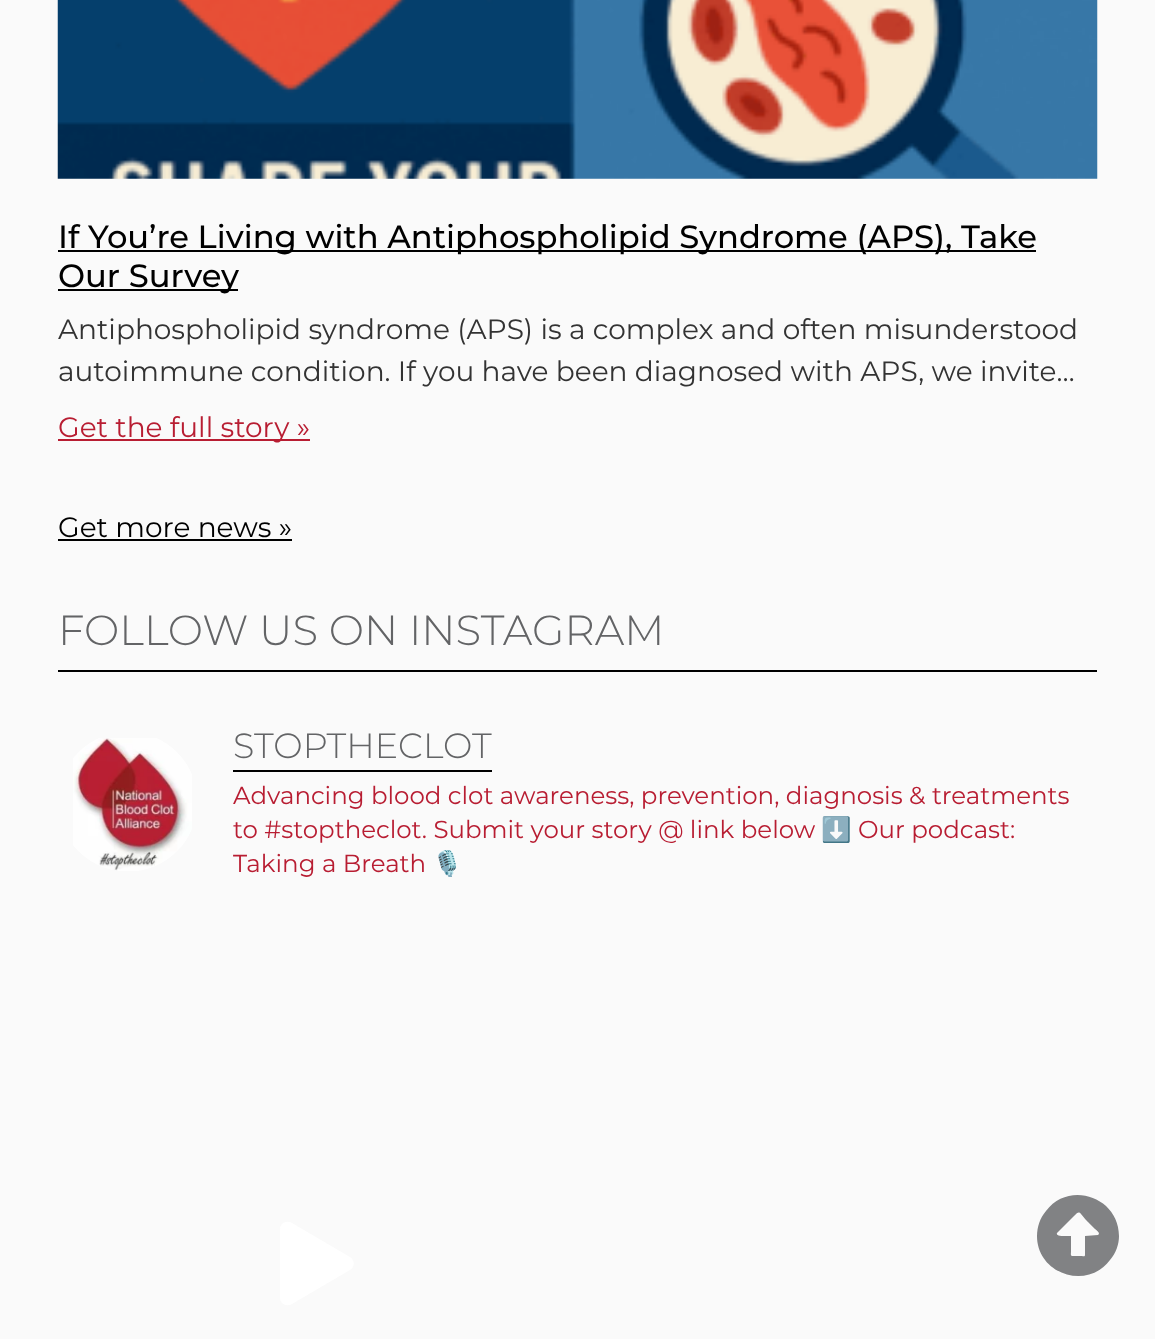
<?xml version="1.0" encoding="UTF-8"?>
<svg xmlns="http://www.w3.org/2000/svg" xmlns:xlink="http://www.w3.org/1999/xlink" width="1155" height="1339">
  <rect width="100%" height="100%" fill="#fafafa" />
  <image x="57" y="0" width="1041" height="179" xlink:href="image1.png" />
  <rect x="58" y="250" width="978" height="2" fill="#000000" />
  <rect x="58" y="289" width="180" height="2" fill="#000000" />
  <rect x="58" y="439" width="252" height="2" fill="#b81d32" />
  <rect x="58" y="539" width="234" height="2" fill="#000000" />
  <rect x="58" y="670" width="1039" height="2" fill="#000000" />
  <image x="73" y="738" width="119" height="133" xlink:href="image2.png" />
  <rect x="233" y="770" width="259" height="2" fill="#000000" />
  <path d="M 350 1257 l -58 -34 c -5 -3 -12 0 -12 6 v 69 c 0 6 7 9 12 6 l 58 -34 c 5 -3 5 -10 0 -13 z" fill="#ffffff" />
  <path d="M 1037 1236 c 0 -9 3 -18 9 -25 c 23 -31 73 -14 73 25 c 0 8 -3 17 -9 24 c -23 31 -73 14 -73 -24 z m 48 19 v -19 l 13 -1 c 3 -2 -2 -5 -3 -6 l -9 -9 c -7 -8 -6 -10 -12 -4 l -17 17 c -2 4 12 3 14 3 v 15 c 0 5 -1 5 3 5 h 8 c 1 0 3 1 3 -1 z" fill="#818284" />
  <text x="58" y="248" style="font-family: Montserrat; font-size: 32.2px; font-weight: 100; fill: #000000">If You’re Living with Antiphospholipid Syndrome (APS), Take</text>
  <text x="58" y="287" style="font-family: Montserrat; font-size: 32.2px; font-weight: 100; fill: #000000">Our Survey</text>
  <text x="58" y="339" style="font-family: 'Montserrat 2'; font-size: 28px; font-weight: 100; fill: #333333">Antiphospholipid syndrome (APS) is a complex and often misunderstood</text>
  <text x="58" y="381" style="font-family: 'Montserrat 2'; font-size: 28px; font-weight: 100; fill: #333333">autoimmune condition. If you have been diagnosed with APS, we invite…</text>
  <text x="58" y="437" style="font-family: 'Montserrat 2'; font-size: 28px; font-weight: 100; fill: #b81d32">Get the full story »</text>
  <text x="58" y="537" style="font-family: 'Montserrat 2'; font-size: 28px; font-weight: 100; fill: #000000">Get more news »</text>
  <text x="58" y="645" style="font-family: 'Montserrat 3'; font-size: 42px; font-weight: 100; fill: #636466">FOLLOW US ON INSTAGRAM</text>
  <text x="233" y="758" style="font-family: 'Montserrat 3'; font-size: 35px; font-weight: 100; fill: #636466">STOPTHECLOT</text>
  <text x="233" y="804" style="font-family: 'Montserrat 2'; font-size: 24.5px; font-weight: 100; fill: #b81d32">Advancing blood clot awareness, prevention, diagnosis &amp; treatments</text>
  <text x="233" y="838" style="font-family: 'Montserrat 2'; font-size: 24.5px; font-weight: 100; fill: #b81d32">to #stoptheclot. Submit your story @ link below</text>
  <text x="821" y="838" style="font-family: Noto Color Emoji; font-size: 24.5px; fill: #b81d32">⬇️</text>
  <text x="858" y="838" style="font-family: 'Montserrat 2'; font-size: 24.5px; font-weight: 100; fill: #b81d32">Our podcast:</text>
  <text x="233" y="872" style="font-family: 'Montserrat 2'; font-size: 24.5px; font-weight: 100; fill: #b81d32">Taking a Breath</text>
  <text x="432" y="872" style="font-family: Noto Color Emoji; font-size: 24.5px; fill: #b81d32">🎙️</text>
</svg>
